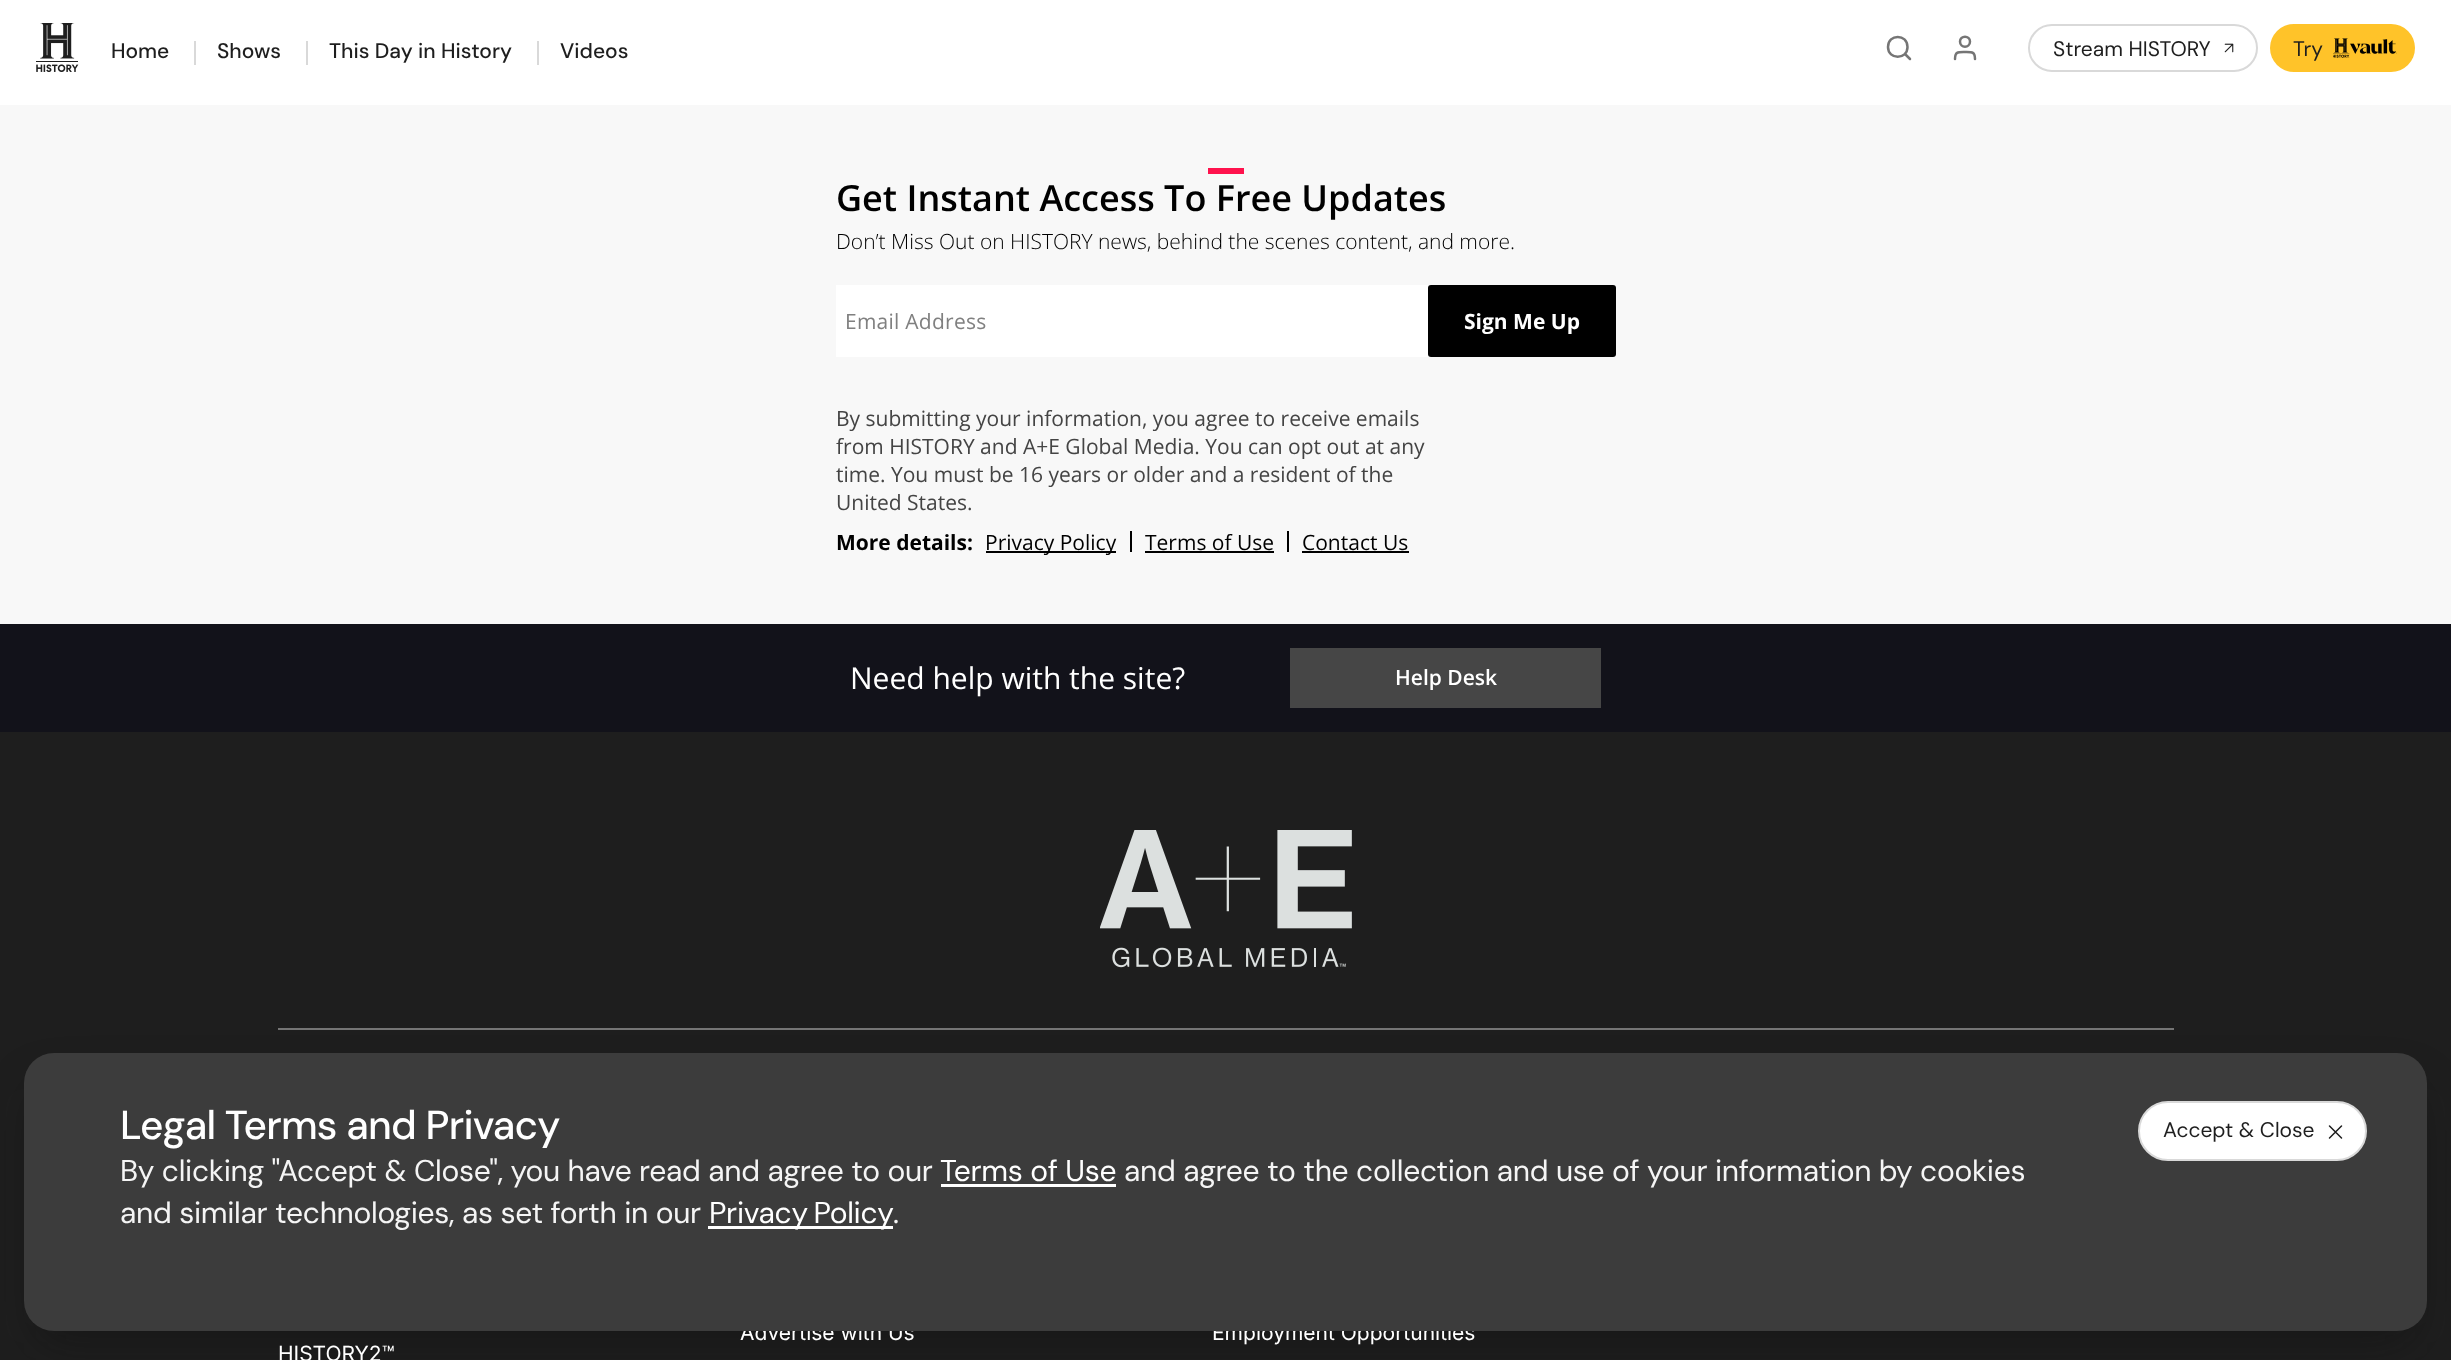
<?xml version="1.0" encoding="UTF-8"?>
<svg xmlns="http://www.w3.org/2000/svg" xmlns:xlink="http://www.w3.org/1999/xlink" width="2451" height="1360">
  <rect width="100%" height="100%" fill="#ffffff" />
  <image x="36" y="23" width="43" height="49" xlink:href="image1.png" />
  <rect x="194" y="41" width="2" height="24" fill="#d9d9d9" />
  <rect x="306" y="41" width="2" height="24" fill="#d9d9d9" />
  <rect x="537" y="41" width="2" height="24" fill="#d9d9d9" />
  <path d="M 1910 59 l -5 -5 m 2.5 -7 c 0 13 -19.5 13 -19.5 0 c 0 -13.5 19.5 -13.5 19.5 0 z" fill="none" stroke="#757575" stroke-width="2.5" stroke-linecap="round" stroke-linejoin="round" />
  <path d="M 1975 59 c 0 -7.5 -3 -7 -10 -7 c -7 0 -10 -0.5 -10 7 m 15 -17.5 c 0 7 -10 7 -10 0 c 0 -6.5 10 -6.5 10 0 z" fill="none" stroke="#757575" stroke-width="2.5" stroke-linecap="round" stroke-linejoin="round" />
  <rect x="2029" y="25" width="228" height="46" rx="23" fill="none" stroke="#d9d9d9" stroke-width="2" />
  <image x="2224" y="43" width="10" height="10" xlink:href="image2.png" />
  <rect x="2270" y="24" width="145" height="48" rx="24" fill="#ffc329" />
  <image x="2333" y="38" width="64" height="20" xlink:href="image3.png" />
  <rect y="105" width="2451" height="519" fill="#f8f8f8" />
  <rect x="1208" y="168" width="36" height="6" fill="#ff124d" />
  <rect x="836" y="285" width="592" height="72" fill="#ffffff" />
  <rect x="1428" y="285" width="188" height="72" rx="3" fill="#000000" />
  <rect x="986" y="551" width="130" height="2" fill="#000000" />
  <rect x="1130" y="531" width="2" height="21" fill="#000000" />
  <rect x="1145" y="551" width="129" height="2" fill="#000000" />
  <rect x="1287" y="531" width="2" height="21" fill="#000000" />
  <rect x="1302" y="551" width="107" height="2" fill="#000000" />
  <rect y="624" width="2451" height="108" fill="#12121a" />
  <rect x="1290" y="648" width="311" height="60" fill="#464646" />
  <rect y="732" width="2451" height="628" fill="#1e1e1e" />
  <rect x="278" y="1028" width="1896" height="2" fill="#757575" />
  <rect x="36" y="1089" width="2379" height="254" rx="18" fill="#0c0c0d" fill-opacity="0.4" filter="blur(24px)" />
  <image x="1100" y="830" width="252" height="138" xlink:href="image4.png" />
  <text x="111" y="58" style="font-family: DM Sans; font-size: 21px; font-weight: 500; fill: #1e1e1e">Home</text>
  <text x="217" y="58" style="font-family: DM Sans; font-size: 21px; font-weight: 500; fill: #1e1e1e">Shows</text>
  <text x="329" y="58" style="font-family: DM Sans; font-size: 21px; font-weight: 500; fill: #1e1e1e">This Day in History</text>
  <text x="560" y="58" style="font-family: DM Sans; font-size: 21px; font-weight: 500; fill: #1e1e1e">Videos</text>
  <text x="2053" y="56" style="font-family: DM Sans; font-size: 21px; fill: #1e1e1e">Stream HISTORY</text>
  <text x="2293" y="56" style="font-family: DM Sans; font-size: 21px; fill: #1e1e1e">Try</text>
  <text x="836" y="211" style="font-family: Open Sans; font-size: 36px; font-weight: 600; fill: #000000">Get Instant Access To Free Updates</text>
  <text x="836" y="249" style="font-family: Open Sans; font-size: 21px; font-weight: 300; fill: #000000">Don’t Miss Out on HISTORY news, behind the scenes content, and more.</text>
  <text x="845" y="329" style="font-family: Open Sans; font-size: 21px; letter-spacing: 0.25px; fill: #808080">Email Address</text>
  <text x="1464" y="329" style="font-family: Open Sans; font-size: 21px; font-weight: bold; fill: #ffffff">Sign Me Up</text>
  <text x="836" y="426" style="font-family: Open Sans; font-size: 21px; fill: #444444">By submitting your information, you agree to receive emails</text>
  <text x="836" y="454" style="font-family: Open Sans; font-size: 21px; fill: #444444">from HISTORY and A+E Global Media. You can opt out at any</text>
  <text x="836" y="482" style="font-family: Open Sans; font-size: 21px; fill: #444444">time. You must be 16 years or older and a resident of the</text>
  <text x="836" y="510" style="font-family: Open Sans; font-size: 21px; fill: #444444">United States.</text>
  <text x="836" y="550" style="font-family: Open Sans; font-size: 21px; font-weight: bold; fill: #000000">More details:</text>
  <text x="985" y="550" style="font-family: Open Sans; font-size: 21px; fill: #000000">Privacy Policy</text>
  <text x="1145" y="550" style="font-family: Open Sans; font-size: 21px; fill: #000000">Terms of Use</text>
  <text x="1302" y="550" style="font-family: Open Sans; font-size: 21px; fill: #000000">Contact Us</text>
  <text x="850" y="689" style="font-family: Open Sans; font-size: 30px; fill: #ffffff">Need help with the site?</text>
  <text x="1395" y="685" style="font-family: Open Sans; font-size: 21px; font-weight: 600; fill: #ffffff">Help Desk</text>
  <text x="740" y="1340" style="font-family: Inter; font-size: 21px; fill: #ffffff">Advertise with Us</text>
  <text x="1212" y="1340" style="font-family: Inter; font-size: 21px; fill: #ffffff">Employment Opportunities</text>
  <rect x="24" y="1053" width="2403" height="278" rx="30" fill="#3c3c3c" />
  <rect x="2139" y="1102" width="227" height="58" rx="29" fill="#ffffff" stroke="#d9d9d9" stroke-width="2" />
  <path d="M 2341.5 1126 l -12 12 m 0 -12 l 12 12" fill="none" stroke="#1e1e1e" stroke-width="1.5" stroke-linecap="round" stroke-linejoin="round" />
  <text x="2163" y="1137" style="font-family: DM Sans; font-size: 21px; fill: #1e1e1e">Accept &amp; Close</text>
  <text x="893" y="1223" style="font-family: DM Sans; font-size: 30px; letter-spacing: -0.3px; fill: #f5f5f5">.</text>
  <rect x="708" y="1226" width="185" height="3" fill="#ffffff" />
  <text x="709" y="1223" word-spacing="-2" style="font-family: DM Sans; font-size: 30px; letter-spacing: -0.3px; fill: #ffffff">Privacy Policy</text>
  <text x="120" y="1223" style="font-family: DM Sans; font-size: 30px; letter-spacing: -0.3px; fill: #f5f5f5">and similar technologies, as set forth in our</text>
  <text x="1124" y="1181" style="font-family: DM Sans; font-size: 30px; letter-spacing: -0.3px; fill: #f5f5f5">and agree to the collection and use of your information by cookies</text>
  <text x="940" y="1181" style="font-family: DM Sans; font-size: 30px; letter-spacing: -0.3px; fill: #ffffff">Terms of Use</text>
  <rect x="941" y="1184" width="175" height="3" fill="#ffffff" />
  <text x="120" y="1181" style="font-family: DM Sans; font-size: 30px; letter-spacing: -0.3px; fill: #f5f5f5">By clicking "Accept &amp; Close", you have read and agree to our</text>
  <text x="120" y="1139" style="font-family: DM Sans; font-size: 40.5px; font-weight: 500; letter-spacing: -0.8px; fill: #ffffff">Legal Terms and Privacy</text>
  <text x="278" y="1361" style="font-family: Inter; font-size: 21px; fill: #ffffff">HISTORY2™</text>
</svg>
